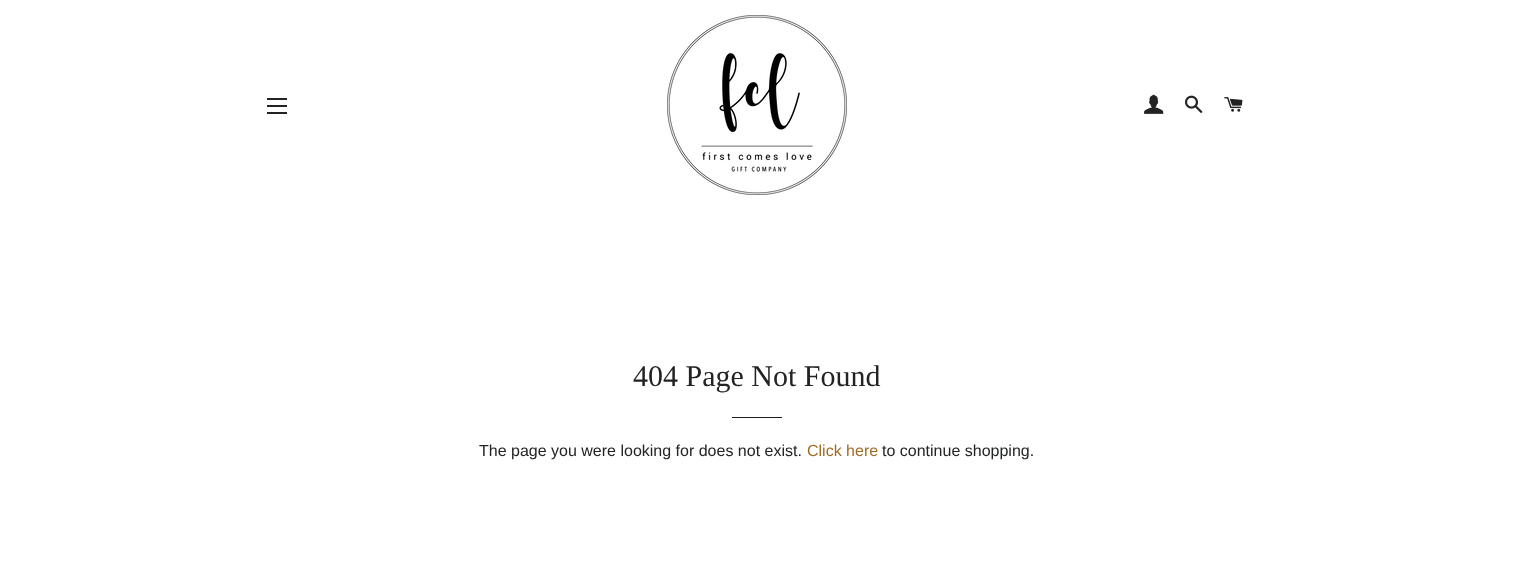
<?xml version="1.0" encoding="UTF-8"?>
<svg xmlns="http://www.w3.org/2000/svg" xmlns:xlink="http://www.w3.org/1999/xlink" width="1514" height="576">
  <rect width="100%" height="100%" fill="#ffffff" />
  <rect x="267" y="98" width="20" height="2" fill="#222323" />
  <rect x="267" y="105" width="20" height="2" fill="#222323" />
  <rect x="267" y="112" width="20" height="2" fill="#222323" />
  <image x="667" y="15" width="180" height="180" xlink:href="image1.png" />
  <image x="1144" y="94" width="20" height="20" xlink:href="image2.png" />
  <image x="1185" y="95" width="18" height="18" xlink:href="image3.png" />
  <image x="1224" y="97" width="19" height="15" xlink:href="image4.png" />
  <rect x="732" y="417" width="50" height="1" fill="#1c1d1d" />
  <text x="633" y="386" style="font-family: Liberation Serif; font-size: 30px; fill: #222323">404 Page Not Found</text>
  <text x="479" y="456" style="font-family: Liberation Sans; font-size: 16px; fill: #222323">The page you were looking for does not exist.</text>
  <text x="807" y="456" style="font-family: Liberation Sans; font-size: 16px; fill: #a26b25">Click here</text>
  <text x="882" y="456" style="font-family: Liberation Sans; font-size: 16px; fill: #222323">to continue shopping.</text>
</svg>
